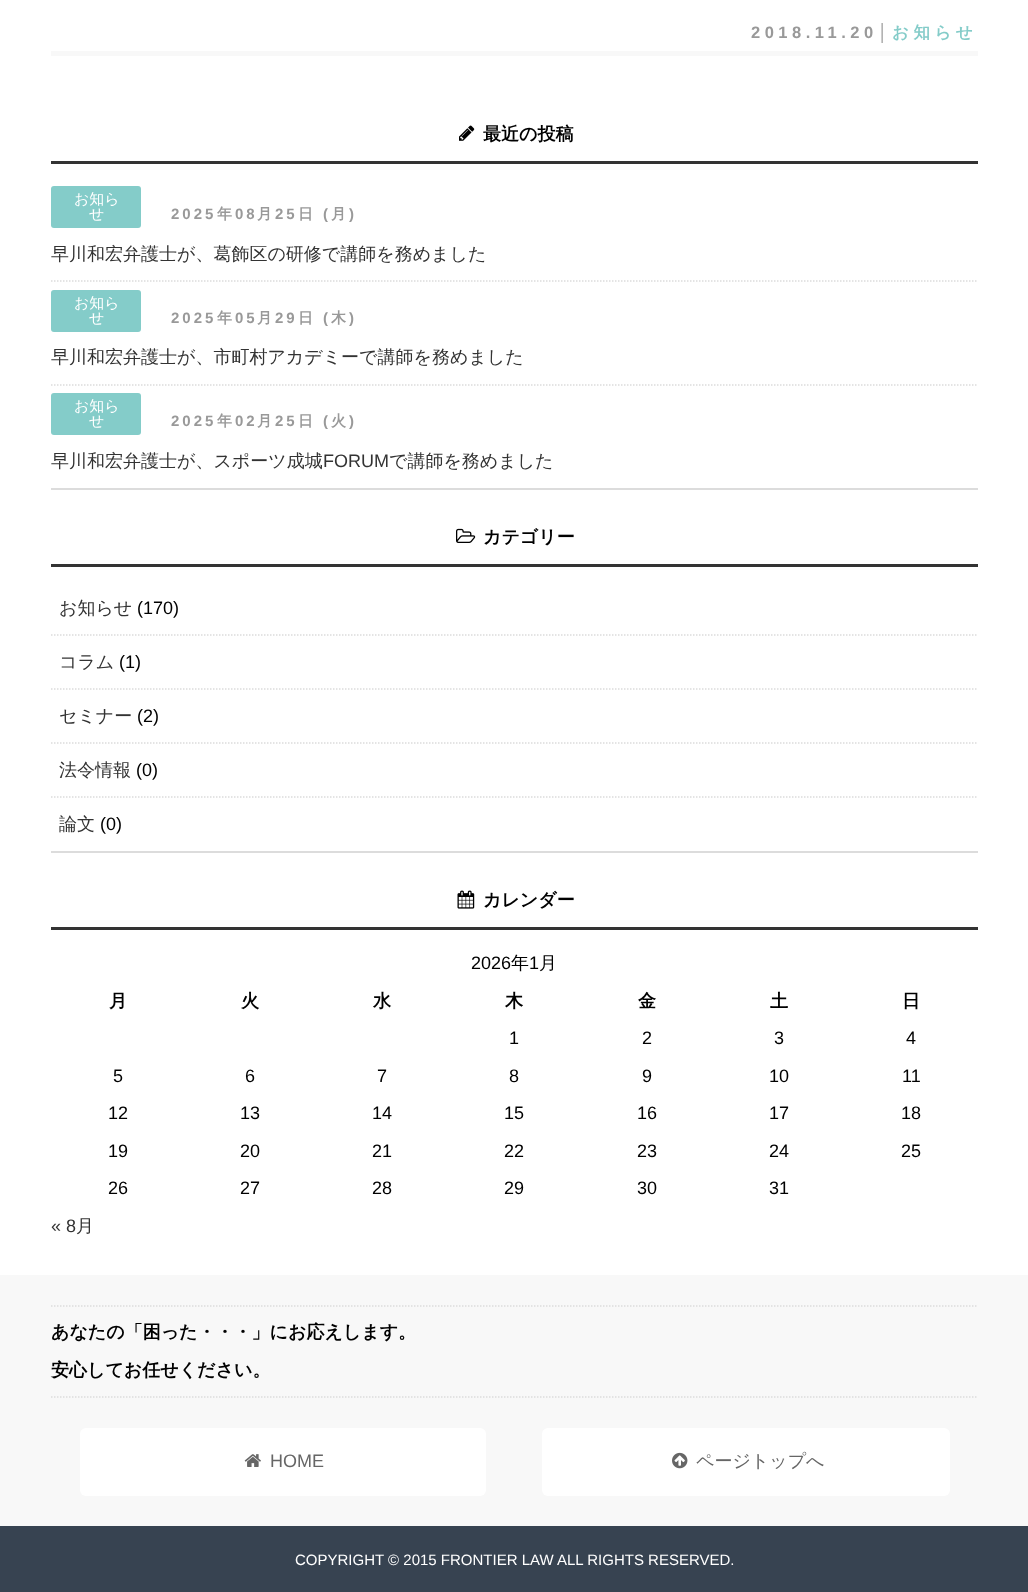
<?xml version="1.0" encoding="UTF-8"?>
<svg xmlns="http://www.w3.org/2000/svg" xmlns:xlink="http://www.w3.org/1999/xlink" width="1028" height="1592">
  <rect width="100%" height="100%" fill="#ffffff" />
  <rect x="51" y="51" width="927" height="5" fill="#f8f8f8" />
  <rect x="51" y="161" width="927" height="3" fill="#333333" />
  <image x="459" y="125" width="16" height="16" xlink:href="image1.png" />
  <rect x="51" y="488" width="927" height="2" fill="#dcdcdc" />
  <path d="M 51 281 h 927" fill="none" stroke="#dcdcdc" stroke-width="1.5" stroke-dasharray="1.5 1.5" />
  <rect x="51" y="186" width="90" height="42" rx="3" fill="#84ccc9" />
  <path d="M 51 385 h 927" fill="none" stroke="#dcdcdc" stroke-width="1.5" stroke-dasharray="1.5 1.5" />
  <rect x="51" y="290" width="90" height="42" rx="3" fill="#84ccc9" />
  <rect x="51" y="393" width="90" height="42" rx="3" fill="#84ccc9" />
  <rect x="51" y="564" width="927" height="3" fill="#333333" />
  <image x="456" y="528" width="20" height="15" xlink:href="image2.png" />
  <path d="M 51 635 h 927" fill="none" stroke="#dcdcdc" stroke-width="1.5" stroke-dasharray="1.5 1.5" />
  <path d="M 51 689 h 927" fill="none" stroke="#dcdcdc" stroke-width="1.5" stroke-dasharray="1.5 1.5" />
  <path d="M 51 743 h 927" fill="none" stroke="#dcdcdc" stroke-width="1.5" stroke-dasharray="1.5 1.5" />
  <path d="M 51 797 h 927" fill="none" stroke="#dcdcdc" stroke-width="1.5" stroke-dasharray="1.5 1.5" />
  <rect x="51" y="851" width="927" height="2" fill="#dcdcdc" />
  <rect x="51" y="927" width="927" height="3" fill="#333333" />
  <image x="457" y="890" width="18" height="19" xlink:href="image3.png" />
  <rect y="1275" width="1028" height="251" fill="#f8f8f8" />
  <path d="M 51 1306 h 927" fill="none" stroke="#dcdcdc" stroke-width="1.5" stroke-dasharray="1.5 1.5" />
  <path d="M 51 1397 h 927" fill="none" stroke="#dcdcdc" stroke-width="1.5" stroke-dasharray="1.5 1.5" />
  <rect x="80" y="1428" width="406" height="68" rx="6" fill="#ffffff" />
  <image x="244" y="1454" width="17" height="13" xlink:href="image4.png" />
  <rect x="542" y="1428" width="408" height="68" rx="6" fill="#ffffff" />
  <image x="672" y="1452" width="16" height="17" xlink:href="image5.png" />
  <rect y="1526" width="1028" height="66" fill="#374351" />
  <text x="751" y="38" style="font-family: Liberation Sans; font-size: 16.5px; font-weight: bold; letter-spacing: 4.5px; fill: #999999">2018.11.20│</text>
  <text x="892" y="38" style="font-family: WenQuanYi Zen Hei; font-size: 16.5px; font-weight: bold; letter-spacing: 4.5px; fill: #84ccc9">お知らせ</text>
  <text x="483" y="140" style="font-family: WenQuanYi Zen Hei; font-size: 18px; font-weight: bold; fill: #000000">最近の投稿</text>
  <text x="74" y="204" style="font-family: WenQuanYi Zen Hei; font-size: 15px; font-weight: 500; fill: #ffffff">お知ら</text>
  <text x="89" y="219" style="font-family: WenQuanYi Zen Hei; font-size: 15px; font-weight: 500; fill: #ffffff">せ</text>
  <text x="171" y="219" style="font-family: Liberation Sans; font-size: 15px; font-weight: bold; letter-spacing: 3px; fill: #999999">2025</text>
  <text x="217" y="219" style="font-family: WenQuanYi Zen Hei; font-size: 15px; font-weight: bold; letter-spacing: 3px; fill: #999999">年</text>
  <text x="235" y="219" style="font-family: Liberation Sans; font-size: 15px; font-weight: bold; letter-spacing: 3px; fill: #999999">08</text>
  <text x="257" y="219" style="font-family: WenQuanYi Zen Hei; font-size: 15px; font-weight: bold; letter-spacing: 3px; fill: #999999">月</text>
  <text x="275" y="219" style="font-family: Liberation Sans; font-size: 15px; font-weight: bold; letter-spacing: 3px; fill: #999999">25</text>
  <text x="298" y="219" style="font-family: WenQuanYi Zen Hei; font-size: 15px; font-weight: bold; letter-spacing: 3px; fill: #999999">日</text>
  <text x="323" y="219" style="font-family: Liberation Sans; font-size: 15px; font-weight: bold; letter-spacing: 3px; fill: #999999">(</text>
  <text x="331" y="219" style="font-family: WenQuanYi Zen Hei; font-size: 15px; font-weight: bold; letter-spacing: 3px; fill: #999999">月</text>
  <text x="349" y="219" style="font-family: Liberation Sans; font-size: 15px; font-weight: bold; letter-spacing: 3px; fill: #999999">)</text>
  <text x="51" y="260" style="font-family: WenQuanYi Zen Hei; font-size: 18px; font-weight: 500; fill: #333333">早川和宏弁護士が、葛飾区の研修で講師を務めました</text>
  <text x="74" y="308" style="font-family: WenQuanYi Zen Hei; font-size: 15px; font-weight: 500; fill: #ffffff">お知ら</text>
  <text x="89" y="323" style="font-family: WenQuanYi Zen Hei; font-size: 15px; font-weight: 500; fill: #ffffff">せ</text>
  <text x="171" y="323" style="font-family: Liberation Sans; font-size: 15px; font-weight: bold; letter-spacing: 3px; fill: #999999">2025</text>
  <text x="217" y="323" style="font-family: WenQuanYi Zen Hei; font-size: 15px; font-weight: bold; letter-spacing: 3px; fill: #999999">年</text>
  <text x="235" y="323" style="font-family: Liberation Sans; font-size: 15px; font-weight: bold; letter-spacing: 3px; fill: #999999">05</text>
  <text x="257" y="323" style="font-family: WenQuanYi Zen Hei; font-size: 15px; font-weight: bold; letter-spacing: 3px; fill: #999999">月</text>
  <text x="275" y="323" style="font-family: Liberation Sans; font-size: 15px; font-weight: bold; letter-spacing: 3px; fill: #999999">29</text>
  <text x="298" y="323" style="font-family: WenQuanYi Zen Hei; font-size: 15px; font-weight: bold; letter-spacing: 3px; fill: #999999">日</text>
  <text x="323" y="323" style="font-family: Liberation Sans; font-size: 15px; font-weight: bold; letter-spacing: 3px; fill: #999999">(</text>
  <text x="331" y="323" style="font-family: WenQuanYi Zen Hei; font-size: 15px; font-weight: bold; letter-spacing: 3px; fill: #999999">木</text>
  <text x="349" y="323" style="font-family: Liberation Sans; font-size: 15px; font-weight: bold; letter-spacing: 3px; fill: #999999">)</text>
  <text x="51" y="363" style="font-family: WenQuanYi Zen Hei; font-size: 18px; font-weight: 500; fill: #333333">早川和宏弁護士が、市町村アカデミーで講師を務めました</text>
  <text x="74" y="411" style="font-family: WenQuanYi Zen Hei; font-size: 15px; font-weight: 500; fill: #ffffff">お知ら</text>
  <text x="89" y="426" style="font-family: WenQuanYi Zen Hei; font-size: 15px; font-weight: 500; fill: #ffffff">せ</text>
  <text x="171" y="426" style="font-family: Liberation Sans; font-size: 15px; font-weight: bold; letter-spacing: 3px; fill: #999999">2025</text>
  <text x="217" y="426" style="font-family: WenQuanYi Zen Hei; font-size: 15px; font-weight: bold; letter-spacing: 3px; fill: #999999">年</text>
  <text x="235" y="426" style="font-family: Liberation Sans; font-size: 15px; font-weight: bold; letter-spacing: 3px; fill: #999999">02</text>
  <text x="257" y="426" style="font-family: WenQuanYi Zen Hei; font-size: 15px; font-weight: bold; letter-spacing: 3px; fill: #999999">月</text>
  <text x="275" y="426" style="font-family: Liberation Sans; font-size: 15px; font-weight: bold; letter-spacing: 3px; fill: #999999">25</text>
  <text x="298" y="426" style="font-family: WenQuanYi Zen Hei; font-size: 15px; font-weight: bold; letter-spacing: 3px; fill: #999999">日</text>
  <text x="323" y="426" style="font-family: Liberation Sans; font-size: 15px; font-weight: bold; letter-spacing: 3px; fill: #999999">(</text>
  <text x="331" y="426" style="font-family: WenQuanYi Zen Hei; font-size: 15px; font-weight: bold; letter-spacing: 3px; fill: #999999">火</text>
  <text x="349" y="426" style="font-family: Liberation Sans; font-size: 15px; font-weight: bold; letter-spacing: 3px; fill: #999999">)</text>
  <text x="51" y="467" style="font-family: WenQuanYi Zen Hei; font-size: 18px; font-weight: 500; fill: #333333">早川和宏弁護士が、スポーツ成城</text>
  <text x="323" y="467" style="font-family: Liberation Sans; font-size: 18px; fill: #333333">FORUM</text>
  <text x="389" y="467" style="font-family: WenQuanYi Zen Hei; font-size: 18px; font-weight: 500; fill: #333333">で講師を務めました</text>
  <text x="483" y="543" style="font-family: WenQuanYi Zen Hei; font-size: 18px; font-weight: bold; fill: #000000">カテゴリー</text>
  <text x="59" y="614" style="font-family: WenQuanYi Zen Hei; font-size: 18px; font-weight: 500; fill: #333333">お知らせ</text>
  <text x="137" y="614" style="font-family: Liberation Sans; font-size: 18px; fill: #000000">(170)</text>
  <text x="59" y="668" style="font-family: WenQuanYi Zen Hei; font-size: 18px; font-weight: 500; fill: #333333">コラム</text>
  <text x="119" y="668" style="font-family: Liberation Sans; font-size: 18px; fill: #000000">(1)</text>
  <text x="59" y="722" style="font-family: WenQuanYi Zen Hei; font-size: 18px; font-weight: 500; fill: #333333">セミナー</text>
  <text x="137" y="722" style="font-family: Liberation Sans; font-size: 18px; fill: #000000">(2)</text>
  <text x="59" y="776" style="font-family: WenQuanYi Zen Hei; font-size: 18px; font-weight: 500; fill: #333333">法令情報</text>
  <text x="136" y="776" style="font-family: Liberation Sans; font-size: 18px; fill: #000000">(0)</text>
  <text x="59" y="830" style="font-family: WenQuanYi Zen Hei; font-size: 18px; font-weight: 500; fill: #333333">論文</text>
  <text x="100" y="830" style="font-family: Liberation Sans; font-size: 18px; fill: #000000">(0)</text>
  <text x="483" y="906" style="font-family: WenQuanYi Zen Hei; font-size: 18px; font-weight: bold; fill: #000000">カレンダー</text>
  <text x="471" y="969" style="font-family: Liberation Sans; font-size: 18px; fill: #000000">2026</text>
  <text x="511" y="969" style="font-family: WenQuanYi Zen Hei; font-size: 18px; font-weight: 500; fill: #000000">年</text>
  <text x="529" y="969" style="font-family: Liberation Sans; font-size: 18px; fill: #000000">1</text>
  <text x="539" y="969" style="font-family: WenQuanYi Zen Hei; font-size: 18px; font-weight: 500; fill: #000000">月</text>
  <text x="109" y="1007" style="font-family: WenQuanYi Zen Hei; font-size: 18px; font-weight: bold; fill: #000000">月</text>
  <text x="241" y="1007" style="font-family: WenQuanYi Zen Hei; font-size: 18px; font-weight: bold; fill: #000000">火</text>
  <text x="373" y="1007" style="font-family: WenQuanYi Zen Hei; font-size: 18px; font-weight: bold; fill: #000000">水</text>
  <text x="505" y="1007" style="font-family: WenQuanYi Zen Hei; font-size: 18px; font-weight: bold; fill: #000000">木</text>
  <text x="638" y="1007" style="font-family: WenQuanYi Zen Hei; font-size: 18px; font-weight: bold; fill: #000000">金</text>
  <text x="770" y="1007" style="font-family: WenQuanYi Zen Hei; font-size: 18px; font-weight: bold; fill: #000000">土</text>
  <text x="902" y="1007" style="font-family: WenQuanYi Zen Hei; font-size: 18px; font-weight: bold; fill: #000000">日</text>
  <text x="509" y="1044" style="font-family: Liberation Sans; font-size: 18px; fill: #000000">1</text>
  <text x="642" y="1044" style="font-family: Liberation Sans; font-size: 18px; fill: #000000">2</text>
  <text x="774" y="1044" style="font-family: Liberation Sans; font-size: 18px; fill: #000000">3</text>
  <text x="906" y="1044" style="font-family: Liberation Sans; font-size: 18px; fill: #000000">4</text>
  <text x="113" y="1082" style="font-family: Liberation Sans; font-size: 18px; fill: #000000">5</text>
  <text x="245" y="1082" style="font-family: Liberation Sans; font-size: 18px; fill: #000000">6</text>
  <text x="377" y="1082" style="font-family: Liberation Sans; font-size: 18px; fill: #000000">7</text>
  <text x="509" y="1082" style="font-family: Liberation Sans; font-size: 18px; fill: #000000">8</text>
  <text x="642" y="1082" style="font-family: Liberation Sans; font-size: 18px; fill: #000000">9</text>
  <text x="769" y="1082" style="font-family: Liberation Sans; font-size: 18px; fill: #000000">10</text>
  <text x="902" y="1082" style="font-family: Liberation Sans; font-size: 18px; fill: #000000">11</text>
  <text x="108" y="1119" style="font-family: Liberation Sans; font-size: 18px; fill: #000000">12</text>
  <text x="240" y="1119" style="font-family: Liberation Sans; font-size: 18px; fill: #000000">13</text>
  <text x="372" y="1119" style="font-family: Liberation Sans; font-size: 18px; fill: #000000">14</text>
  <text x="504" y="1119" style="font-family: Liberation Sans; font-size: 18px; fill: #000000">15</text>
  <text x="637" y="1119" style="font-family: Liberation Sans; font-size: 18px; fill: #000000">16</text>
  <text x="769" y="1119" style="font-family: Liberation Sans; font-size: 18px; fill: #000000">17</text>
  <text x="901" y="1119" style="font-family: Liberation Sans; font-size: 18px; fill: #000000">18</text>
  <text x="108" y="1157" style="font-family: Liberation Sans; font-size: 18px; fill: #000000">19</text>
  <text x="240" y="1157" style="font-family: Liberation Sans; font-size: 18px; fill: #000000">20</text>
  <text x="372" y="1157" style="font-family: Liberation Sans; font-size: 18px; fill: #000000">21</text>
  <text x="504" y="1157" style="font-family: Liberation Sans; font-size: 18px; fill: #000000">22</text>
  <text x="637" y="1157" style="font-family: Liberation Sans; font-size: 18px; fill: #000000">23</text>
  <text x="769" y="1157" style="font-family: Liberation Sans; font-size: 18px; fill: #000000">24</text>
  <text x="901" y="1157" style="font-family: Liberation Sans; font-size: 18px; fill: #000000">25</text>
  <text x="108" y="1194" style="font-family: Liberation Sans; font-size: 18px; fill: #000000">26</text>
  <text x="240" y="1194" style="font-family: Liberation Sans; font-size: 18px; fill: #000000">27</text>
  <text x="372" y="1194" style="font-family: Liberation Sans; font-size: 18px; fill: #000000">28</text>
  <text x="504" y="1194" style="font-family: Liberation Sans; font-size: 18px; fill: #000000">29</text>
  <text x="637" y="1194" style="font-family: Liberation Sans; font-size: 18px; fill: #000000">30</text>
  <text x="769" y="1194" style="font-family: Liberation Sans; font-size: 18px; fill: #000000">31</text>
  <text x="51" y="1232" style="font-family: Liberation Sans; font-size: 18px; fill: #333333">« 8</text>
  <text x="76" y="1232" style="font-family: WenQuanYi Zen Hei; font-size: 18px; font-weight: 500; fill: #333333">月</text>
  <text x="51" y="1338" style="font-family: WenQuanYi Zen Hei; font-size: 18px; font-weight: bold; fill: #000000">あなたの「困った・・・」にお応えします。</text>
  <text x="51" y="1376" style="font-family: WenQuanYi Zen Hei; font-size: 18px; font-weight: bold; fill: #000000">安心してお任せください。</text>
  <text x="270" y="1467" style="font-family: Liberation Sans; font-size: 18px; fill: #666666">HOME</text>
  <text x="696" y="1467" style="font-family: WenQuanYi Zen Hei; font-size: 18px; font-weight: 500; fill: #666666">ページトップへ</text>
  <text x="295" y="1565" style="font-family: Liberation Sans; font-size: 15px; fill: #ffffff">COPYRIGHT © 2015 FRONTIER LAW ALL RIGHTS RESERVED.</text>
</svg>
